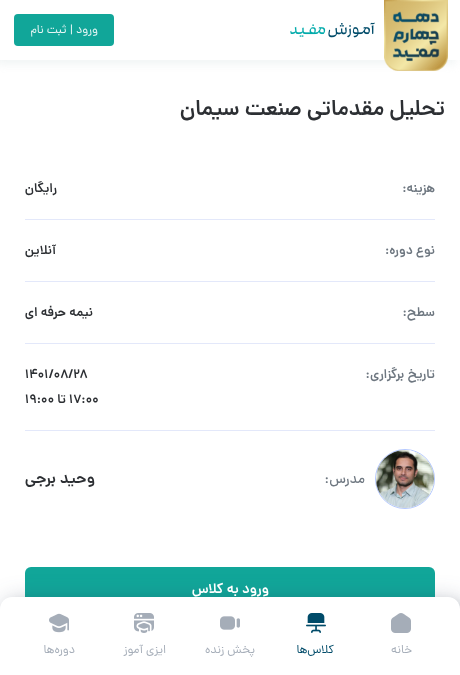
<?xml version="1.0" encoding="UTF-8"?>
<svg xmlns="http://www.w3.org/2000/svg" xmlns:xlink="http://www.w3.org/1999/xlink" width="460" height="675">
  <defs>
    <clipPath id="clip1"><rect x="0" y="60" width="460" height="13" /></clipPath>
  </defs>
  <rect width="100%" height="100%" fill="#ffffff" />
  <g clip-path="url(#clip1)">
    <rect x="-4" y="4" width="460" height="60" fill="#e9f0f0" fill-opacity="0.7" filter="blur(5px)" />
  </g>
  <image x="384" y="0" width="64" height="71" xlink:href="image1.png" />
  <image x="290" y="22" width="85" height="16" xlink:href="image2.png" />
  <rect x="14" y="14" width="100" height="32" rx="4" fill="#11a699" />
  <rect x="25" y="219" width="410" height="1" fill="#e3e8fa" />
  <rect x="25" y="281" width="410" height="1" fill="#e3e8fa" />
  <rect x="25" y="343" width="410" height="1" fill="#e3e8fa" />
  <rect x="25" y="430" width="410" height="1" fill="#e3e8fa" />
  <circle cx="405" cy="479" r="29.5" fill="none" stroke="#b4c8ff" />
  <image x="376" y="450" width="58" height="58" xlink:href="image3.png" />
  <rect x="25" y="567" width="410" height="45" rx="6" fill="#11a699" />
  <rect x="4" y="601" width="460" height="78" rx="12" fill="#001017" fill-opacity="0.1" filter="blur(5px)" />
  <rect x="4" y="601" width="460" height="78" rx="12" fill="#33405d" fill-opacity="0.3" filter="blur(12px)" />
  <path d="M 12 597 h 436 c 6.5 0 12 5.5 12 12 v 66 h -460 v -66 c 0 -6.5 5.5 -12 12 -12 z" fill="#ffffff" />
  <image x="391" y="613" width="20" height="20" xlink:href="image4.png" />
  <image x="306" y="613" width="20" height="20" xlink:href="image5.png" />
  <image x="220" y="616" width="20" height="14" xlink:href="image6.png" />
  <image x="134" y="613" width="20" height="20" xlink:href="image7.png" />
  <image x="49" y="613" width="20" height="20" xlink:href="image8.png" />
  <text x="98" y="33" style="font-family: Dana; font-size: 12px; direction: rtl; fill: #e7f6f5">ورود | ثبت نام</text>
  <text x="445" y="115" style="font-family: Dana; font-size: 22px; font-weight: 600; direction: rtl; fill: #2c2f33">تحلیل مقدماتی صنعت سیمان</text>
  <text x="435" y="192" style="font-family: Dana; font-size: 13px; font-weight: 600; direction: rtl; fill: #6e7780">هزینه:</text>
  <text x="57" y="192" style="font-family: Dana; font-size: 13px; font-weight: 600; direction: rtl; fill: #2c2f33">رایگان</text>
  <text x="435" y="254" style="font-family: Dana; font-size: 13px; font-weight: 600; direction: rtl; fill: #6e7780">نوع دوره:</text>
  <text x="56" y="254" style="font-family: Dana; font-size: 13px; font-weight: 600; direction: rtl; fill: #2c2f33">آنلاین</text>
  <text x="435" y="316" style="font-family: Dana; font-size: 13px; font-weight: 600; direction: rtl; fill: #6e7780">سطح:</text>
  <text x="93" y="316" style="font-family: Dana; font-size: 13px; font-weight: 600; direction: rtl; fill: #2c2f33">نیمه حرفه ای</text>
  <text x="435" y="378" style="font-family: Dana; font-size: 13px; font-weight: 600; direction: rtl; fill: #6e7780">تاریخ برگزاری:</text>
  <text x="25" y="378" style="font-family: Dana; font-size: 13px; font-weight: 600; fill: #2c2f33">۱۴۰۱/۰۸/۲۸</text>
  <text x="69" y="403" style="font-family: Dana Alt; font-size: 13px; font-weight: 600; fill: #2c2f33">17:00</text>
  <text x="66" y="403" style="font-family: Dana; font-size: 13px; font-weight: 600; direction: rtl; fill: #2c2f33">تا</text>
  <text x="25" y="403" style="font-family: Dana Alt; font-size: 13px; font-weight: 600; fill: #2c2f33">19:00</text>
  <text x="365" y="483" style="font-family: Dana; font-size: 14px; font-weight: 500; direction: rtl; fill: #6e7780">مدرس:</text>
  <text x="95" y="483" style="font-family: Dana; font-size: 16px; font-weight: 600; direction: rtl; fill: #2c2f33">وحید برجی</text>
  <text x="269" y="593" style="font-family: Dana; font-size: 14px; font-weight: 600; direction: rtl; fill: #ffffff">ورود به کلاس</text>
  <text x="412" y="653" style="font-family: Dana; font-size: 12px; direction: rtl; fill: #a5adb8">خانه</text>
  <text x="334" y="653" style="font-family: Dana; font-size: 12px; direction: rtl; fill: #004b69">کلاس‌ها</text>
  <text x="255" y="653" style="font-family: Dana; font-size: 12px; direction: rtl; fill: #a5adb8">پخش زنده</text>
  <text x="166" y="653" style="font-family: Dana; font-size: 12px; direction: rtl; fill: #a5adb8">ایزی آموز</text>
  <text x="75" y="653" style="font-family: Dana; font-size: 12px; direction: rtl; fill: #a5adb8">دوره‌ها</text>
</svg>
